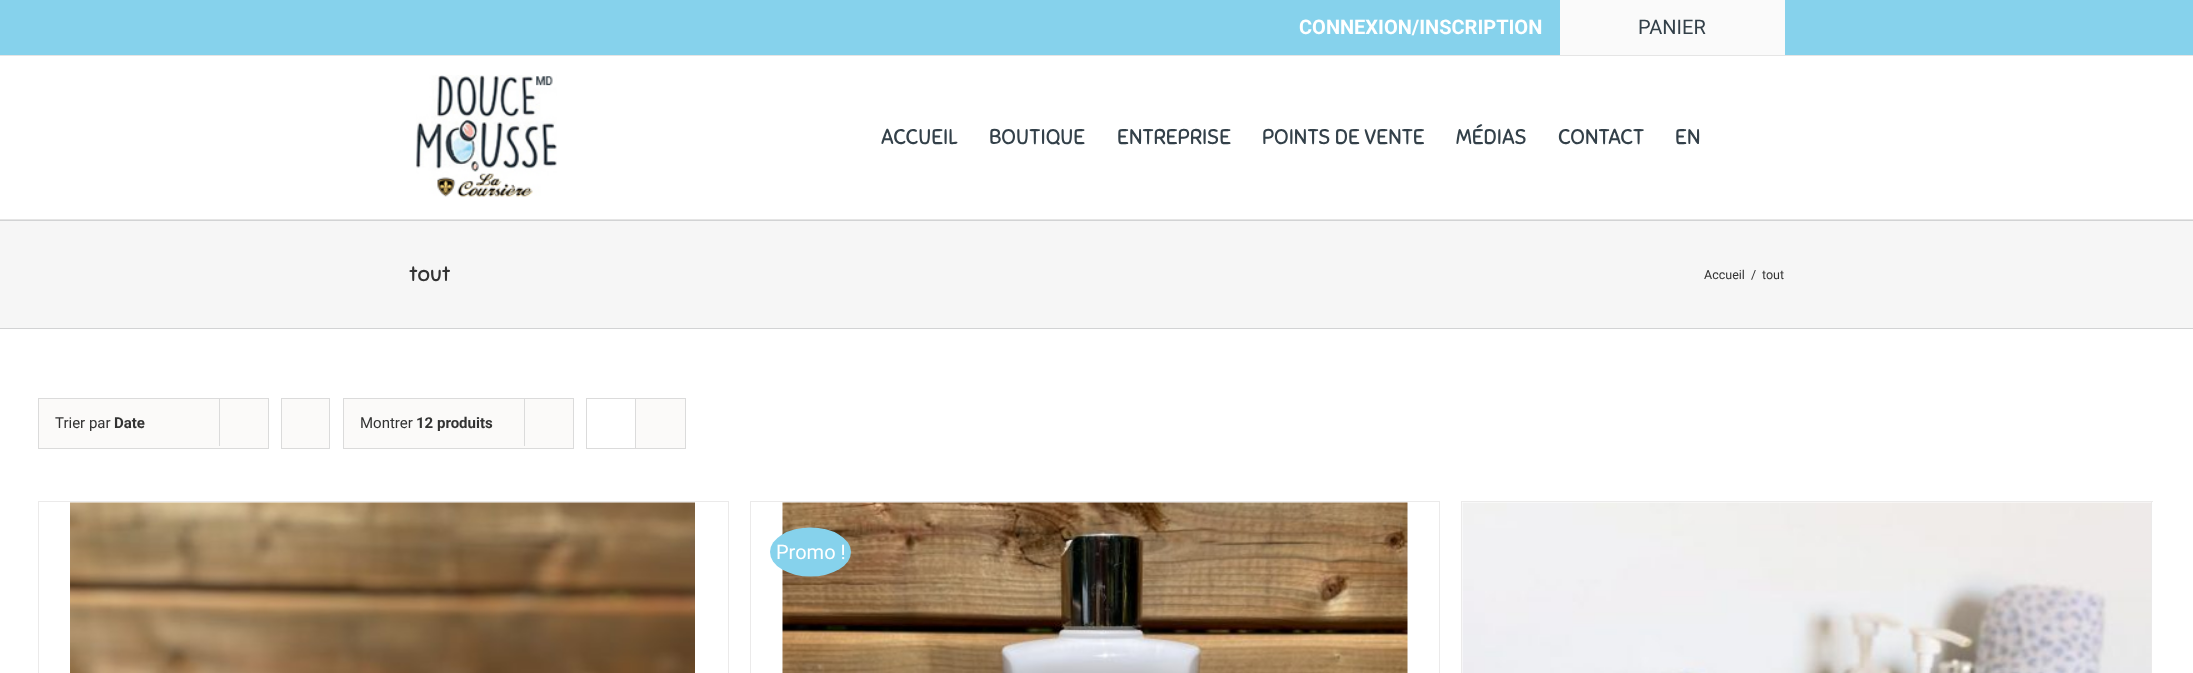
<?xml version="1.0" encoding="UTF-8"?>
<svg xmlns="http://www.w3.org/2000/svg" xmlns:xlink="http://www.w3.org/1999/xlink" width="2193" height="673">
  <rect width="100%" height="100%" fill="#ffffff" />
  <rect width="2193" height="55" fill="#86d2ec" />
  <rect y="55" width="2193" height="1" fill="#e5e5e5" />
  <rect x="1560" width="225" height="55" fill="#fafafa" />
  <rect y="219" width="2193" height="1" fill="#e5e5e5" />
  <image x="416" y="75" width="141" height="123" xlink:href="image1.png" />
  <rect y="221" width="2193" height="107" fill="#f6f6f6" />
  <rect y="220" width="2193" height="1" fill="#d2d3d4" />
  <rect y="328" width="2193" height="1" fill="#d2d3d4" />
  <rect x="38.5" y="398.5" width="230" height="50" fill="#fbfaf9" stroke="#dbdbdb" />
  <rect x="219" y="398" width="1" height="48" fill="#dbdbdb" />
  <rect x="281.5" y="398.5" width="48" height="50" fill="#fbfaf9" stroke="#dbdbdb" />
  <rect x="343.5" y="398.5" width="230" height="50" fill="#fbfaf9" stroke="#dbdbdb" />
  <rect x="524" y="398" width="1" height="48" fill="#dbdbdb" />
  <rect x="586.5" y="398.5" width="99" height="50" fill="none" stroke="#dbdbdb" />
  <rect x="635" y="399" width="1" height="49" fill="#dbdbdb" />
  <rect x="636" y="399" width="49" height="49" fill="#fbfaf9" />
  <rect x="38" y="501" width="691" height="1" fill="#ebeaea" />
  <rect x="728" y="501" width="1" height="172" fill="#ebeaea" />
  <rect x="38" y="501" width="1" height="172" fill="#ebeaea" />
  <image x="70" y="502" width="625" height="171" xlink:href="image2.png" />
  <rect x="750" y="501" width="690" height="1" fill="#ebeaea" />
  <rect x="1439" y="501" width="1" height="172" fill="#ebeaea" />
  <rect x="750" y="501" width="1" height="172" fill="#ebeaea" />
  <image x="782" y="502" width="626" height="171" xlink:href="image3.png" />
  <ellipse cx="810.5" cy="552" rx="40.5" ry="24.5" fill="#86d2ec" />
  <rect x="1461" y="501" width="692" height="1" fill="#ebeaea" />
  <rect x="2151" y="501" width="1" height="172" fill="#ebeaea" />
  <rect x="1461" y="501" width="1" height="172" fill="#ebeaea" />
  <image x="1462" y="502" width="689" height="171" xlink:href="image4.png" />
  <text x="1299" y="34" style="font-family: Roboto; font-size: 20px; font-weight: bold; fill: #ffffff">CONNEXION/INSCRIPTION</text>
  <text x="1638" y="34" style="font-family: Roboto; font-size: 20px; fill: #334049">PANIER</text>
  <text x="881" y="144" style="font-family: Sniglet; font-size: 21.25px; fill: #334049">ACCUEIL</text>
  <text x="989" y="144" style="font-family: Sniglet; font-size: 21.25px; fill: #334049">BOUTIQUE</text>
  <text x="1117" y="144" style="font-family: Sniglet; font-size: 21.25px; fill: #334049">ENTREPRISE</text>
  <text x="1262" y="144" style="font-family: Sniglet; font-size: 21.25px; fill: #334049">POINTS DE VENTE</text>
  <text x="1456" y="144" style="font-family: Sniglet; font-size: 21.25px; fill: #334049">MÉDIAS</text>
  <text x="1558" y="144" style="font-family: Sniglet; font-size: 21.25px; fill: #334049">CONTACT</text>
  <text x="1675" y="144" style="font-family: Sniglet; font-size: 21.25px; fill: #334049">EN</text>
  <text x="409" y="281" style="font-family: Sniglet; font-size: 22px; fill: #333333">tout</text>
  <text x="1704" y="279" style="font-family: Roboto; font-size: 12.5px; fill: #333333">Accueil</text>
  <text x="1751" y="279" style="font-family: Roboto; font-size: 12.5px; fill: #333333">/</text>
  <text x="1762" y="279" style="font-family: Roboto; font-size: 12.5px; fill: #333333">tout</text>
  <text x="55" y="428" style="font-family: Roboto; font-size: 15px; fill: #333333">Trier par</text>
  <text x="114" y="428" style="font-family: Roboto; font-size: 15px; font-weight: bold; fill: #333333">Date</text>
  <text x="360" y="428" style="font-family: Roboto; font-size: 15px; fill: #333333">Montrer</text>
  <text x="416" y="428" style="font-family: Roboto; font-size: 15px; font-weight: bold; fill: #333333">12 produits</text>
  <text x="776" y="559" style="font-family: Roboto; font-size: 20px; fill: #ffffff">Promo !</text>
</svg>
